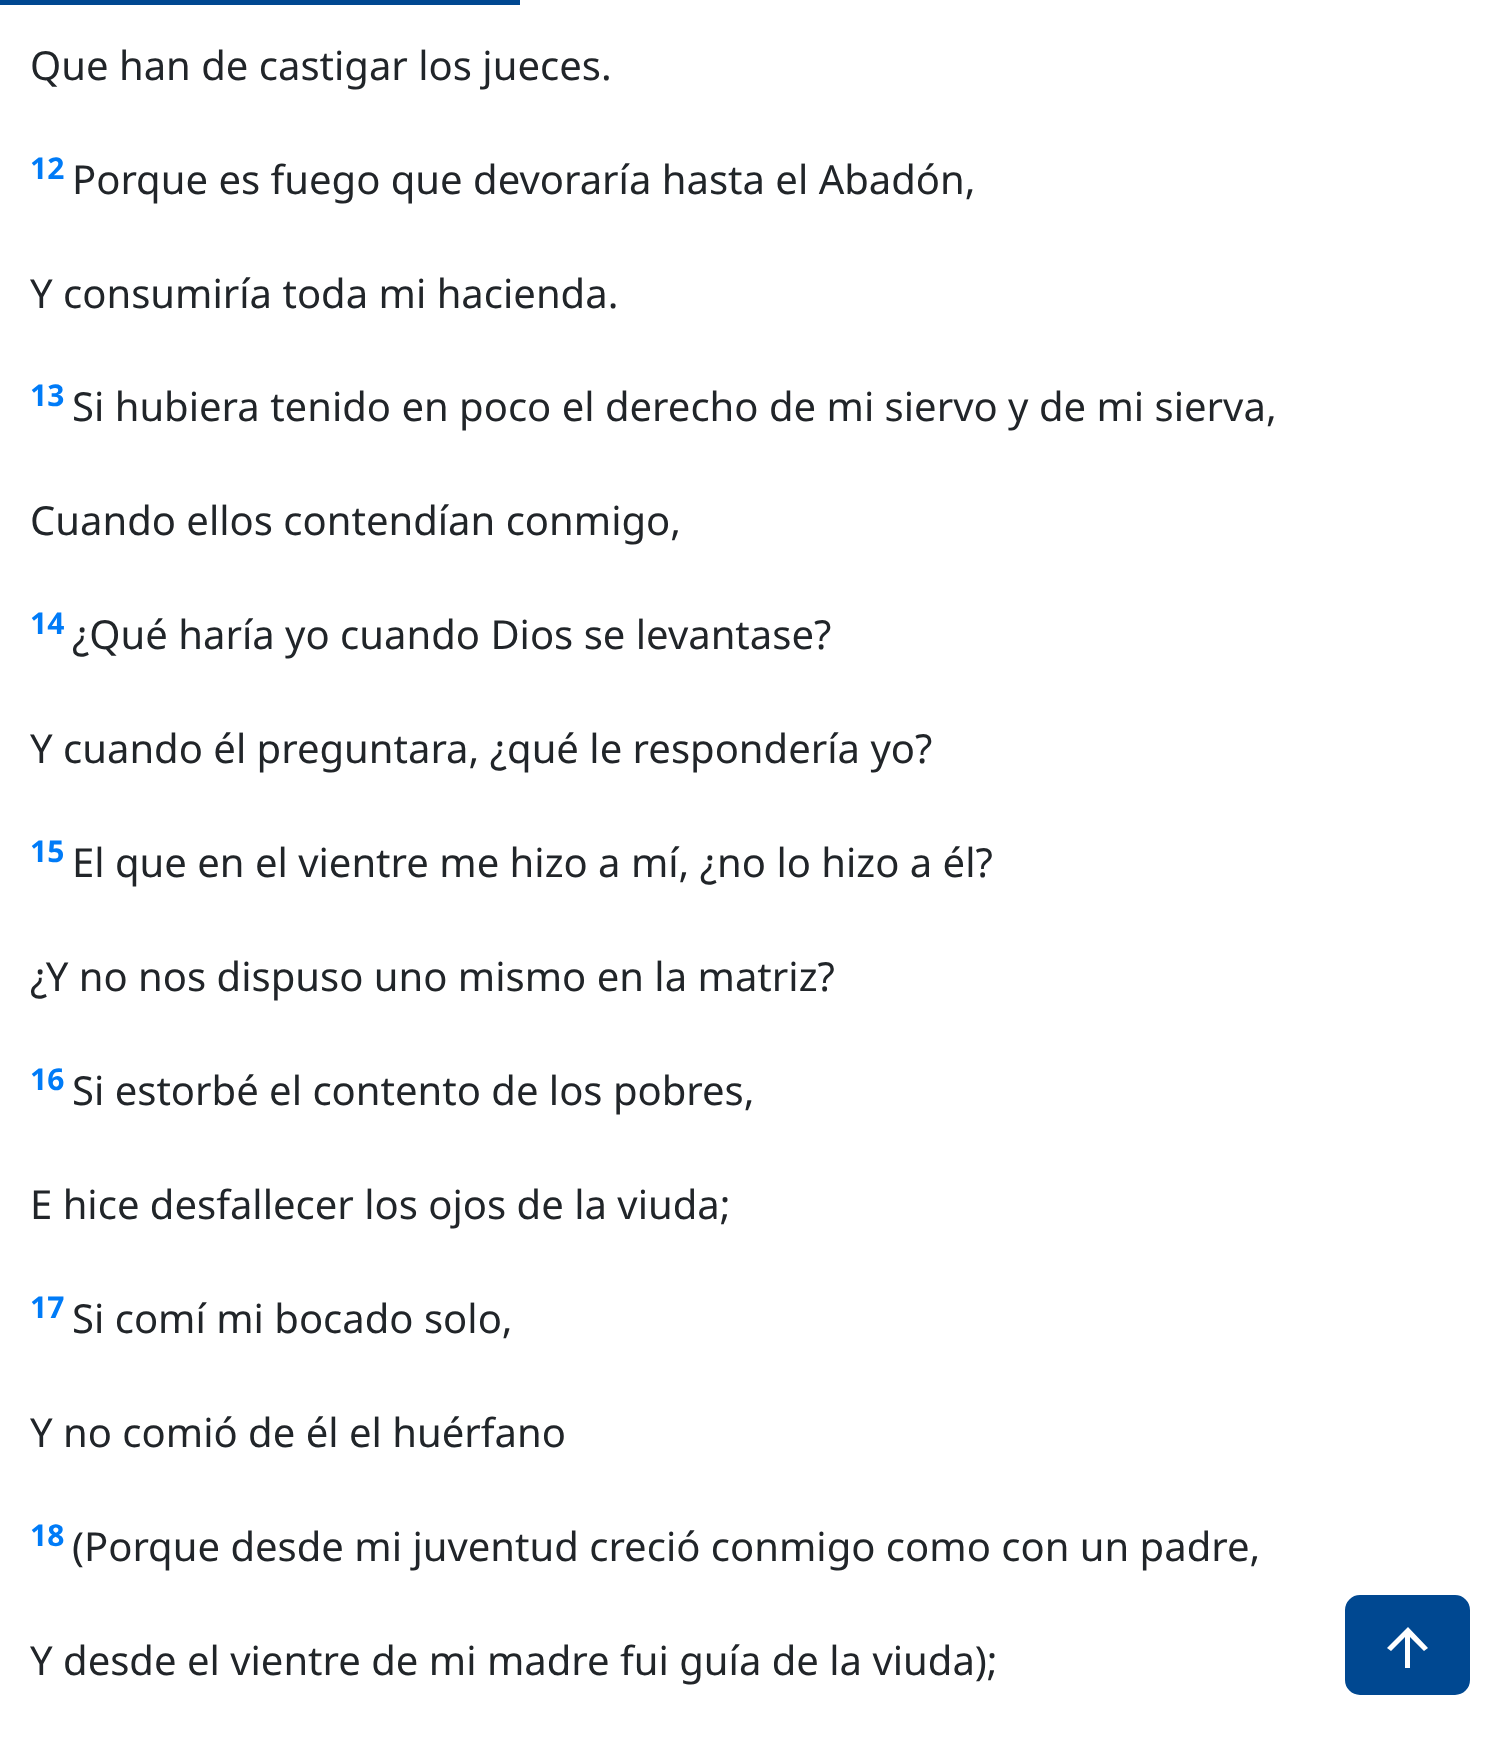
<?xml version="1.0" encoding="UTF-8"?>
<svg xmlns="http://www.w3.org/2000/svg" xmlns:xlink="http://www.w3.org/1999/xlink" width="1500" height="1753">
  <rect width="100%" height="100%" fill="#ffffff" />
  <rect width="520" height="5" fill="#004891" />
  <rect x="1346.5" y="1596.5" width="122" height="97" rx="13.5" fill="#004891" stroke="#004891" stroke-width="3" />
  <path d="M 1387 1648 l 21 -21 l 20 21 l -4 3 l -14 -14 v 31 h -5 v -31 l -14 14 z" fill="#ffffff" />
  <text x="30" y="80" style="font-family: Noto Sans; font-size: 40px; fill: #212529">Que han de castigar los jueces.</text>
  <text x="30" y="179" style="font-family: Noto Sans; font-size: 30px; font-weight: bold; fill: #007bf7">12</text>
  <text x="72" y="194" style="font-family: Noto Sans; font-size: 40px; fill: #212529">Porque es fuego que devoraría hasta el Abadón,</text>
  <text x="30" y="308" style="font-family: Noto Sans; font-size: 40px; fill: #212529">Y consumiría toda mi hacienda.</text>
  <text x="30" y="406" style="font-family: Noto Sans; font-size: 30px; font-weight: bold; fill: #007bf7">13</text>
  <text x="72" y="421" style="font-family: Noto Sans; font-size: 40px; fill: #212529">Si hubiera tenido en poco el derecho de mi siervo y de mi sierva,</text>
  <text x="30" y="535" style="font-family: Noto Sans; font-size: 40px; fill: #212529">Cuando ellos contendían conmigo,</text>
  <text x="30" y="634" style="font-family: Noto Sans; font-size: 30px; font-weight: bold; fill: #007bf7">14</text>
  <text x="72" y="649" style="font-family: Noto Sans; font-size: 40px; fill: #212529">¿Qué haría yo cuando Dios se levantase?</text>
  <text x="30" y="763" style="font-family: Noto Sans; font-size: 40px; fill: #212529">Y cuando él preguntara, ¿qué le respondería yo?</text>
  <text x="30" y="862" style="font-family: Noto Sans; font-size: 30px; font-weight: bold; fill: #007bf7">15</text>
  <text x="72" y="877" style="font-family: Noto Sans; font-size: 40px; fill: #212529">El que en el vientre me hizo a mí, ¿no lo hizo a él?</text>
  <text x="30" y="991" style="font-family: Noto Sans; font-size: 40px; fill: #212529">¿Y no nos dispuso uno mismo en la matriz?</text>
  <text x="30" y="1090" style="font-family: Noto Sans; font-size: 30px; font-weight: bold; fill: #007bf7">16</text>
  <text x="72" y="1105" style="font-family: Noto Sans; font-size: 40px; fill: #212529">Si estorbé el contento de los pobres,</text>
  <text x="30" y="1219" style="font-family: Noto Sans; font-size: 40px; fill: #212529">E hice desfallecer los ojos de la viuda;</text>
  <text x="30" y="1318" style="font-family: Noto Sans; font-size: 30px; font-weight: bold; fill: #007bf7">17</text>
  <text x="72" y="1333" style="font-family: Noto Sans; font-size: 40px; fill: #212529">Si comí mi bocado solo,</text>
  <text x="30" y="1447" style="font-family: Noto Sans; font-size: 40px; fill: #212529">Y no comió de él el huérfano</text>
  <text x="30" y="1546" style="font-family: Noto Sans; font-size: 30px; font-weight: bold; fill: #007bf7">18</text>
  <text x="72" y="1561" style="font-family: Noto Sans; font-size: 40px; fill: #212529">(Porque desde mi juventud creció conmigo como con un padre,</text>
  <text x="30" y="1675" style="font-family: Noto Sans; font-size: 40px; fill: #212529">Y desde el vientre de mi madre fui guía de la viuda);</text>
</svg>
